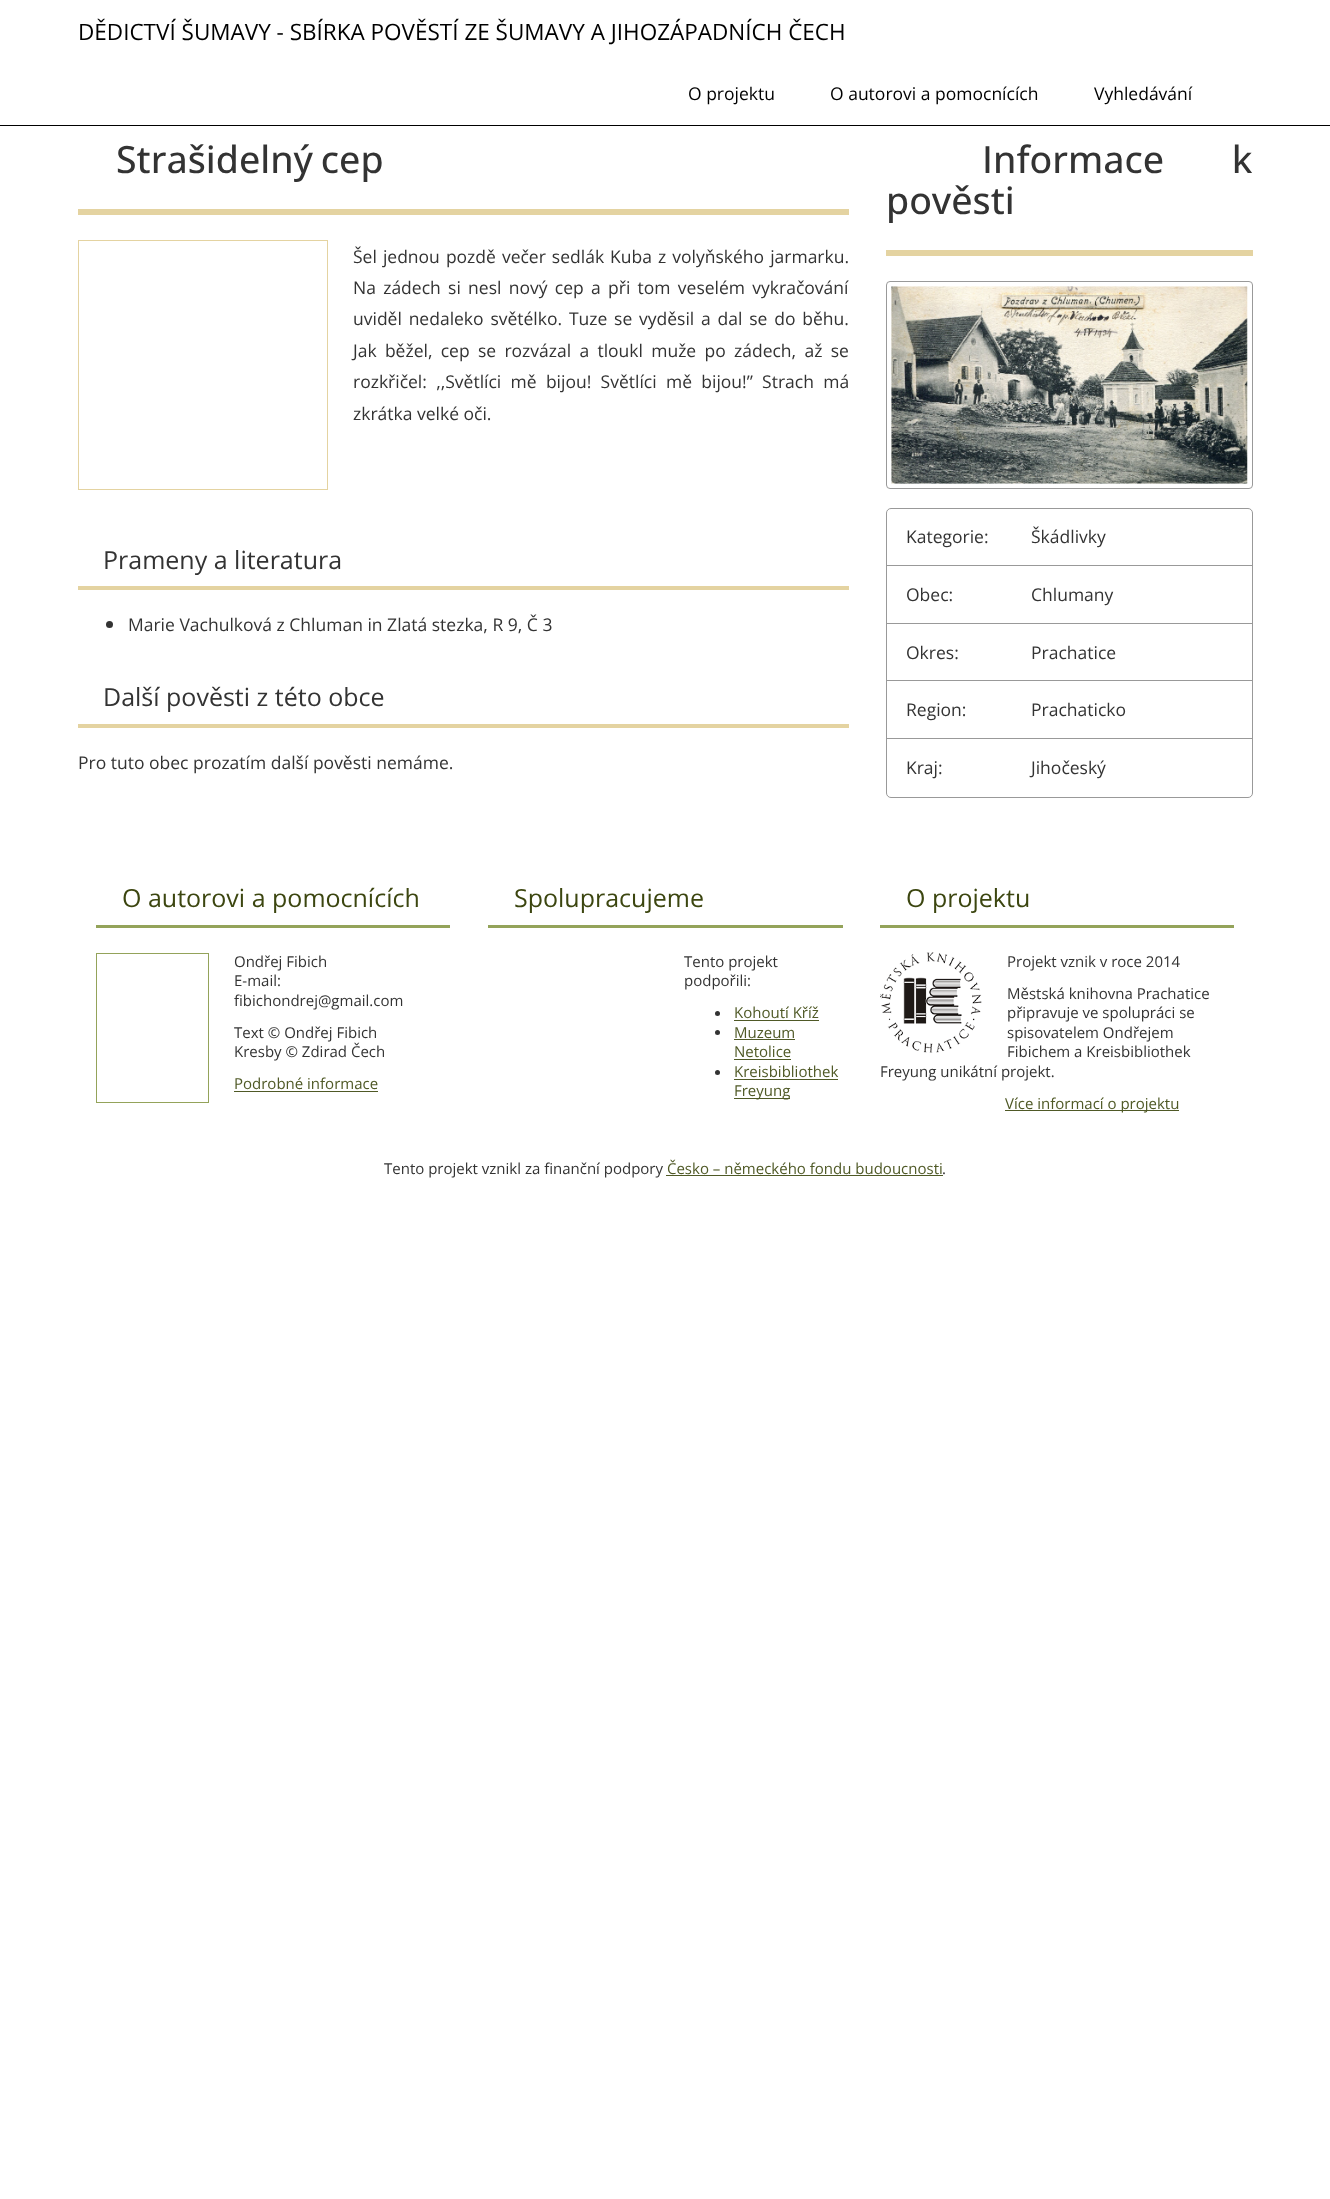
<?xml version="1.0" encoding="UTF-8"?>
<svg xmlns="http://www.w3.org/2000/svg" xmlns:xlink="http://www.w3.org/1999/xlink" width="1330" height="2199">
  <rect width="100%" height="100%" fill="#ffffff" />
  <rect y="125" width="1330" height="1" fill="#000000" />
  <rect x="78" y="209" width="771" height="6" fill="#e4d3a1" />
  <rect x="78.5" y="240.5" width="249" height="249" fill="none" stroke="#e4d3a1" />
  <rect x="78" y="586" width="771" height="4" fill="#e4d3a1" />
  <circle cx="109.5" cy="624.5" r="3.5" fill="#333333" />
  <rect x="78" y="724" width="771" height="4" fill="#e4d3a1" />
  <rect x="886" y="250" width="367" height="6" fill="#e4d3a1" />
  <rect x="886.5" y="281.5" width="366" height="207" rx="3.5" fill="none" stroke="#999999" />
  <image x="891" y="286" width="357" height="198" xlink:href="image1.png" />
  <path d="M 891 508.5 h 357 c 2.5 0 4.5 2 4.5 4.5 v 52.5 h -366 v -52.5 c 0 -2.5 2 -4.5 4.5 -4.5 z" fill="none" stroke="#999999" />
  <rect x="886.5" y="565.5" width="366" height="58" fill="none" stroke="#999999" />
  <rect x="886.5" y="623.5" width="366" height="57" fill="none" stroke="#999999" />
  <rect x="886.5" y="680.5" width="366" height="58" fill="none" stroke="#999999" />
  <path d="M 886.5 738.5 h 366 v 54.5 c 0 2.5 -2 4.5 -4.5 4.5 h -357 c -2.5 0 -4.5 -2 -4.5 -4.5 z" fill="none" stroke="#999999" />
  <rect x="96" y="925" width="354" height="3" fill="#94a35a" />
  <rect x="96.5" y="953.5" width="112" height="149" fill="none" stroke="#94a35a" />
  <rect x="234" y="1091" width="144" height="1" fill="#4f5926" />
  <rect x="488" y="925" width="355" height="3" fill="#94a35a" />
  <circle cx="717.5" cy="1013.5" r="2.5" fill="#333333" />
  <rect x="734" y="1020" width="85" height="1" fill="#4f5926" />
  <circle cx="717.5" cy="1032.5" r="2.5" fill="#333333" />
  <rect x="734" y="1039" width="61" height="1" fill="#4f5926" />
  <rect x="734" y="1059" width="57" height="1" fill="#4f5926" />
  <circle cx="717.5" cy="1072.5" r="2.5" fill="#333333" />
  <rect x="734" y="1079" width="104" height="1" fill="#4f5926" />
  <rect x="734" y="1098" width="56" height="1" fill="#4f5926" />
  <rect x="880" y="925" width="354" height="3" fill="#94a35a" />
  <image x="880" y="952" width="102" height="101" xlink:href="image2.png" />
  <rect x="1005" y="1110" width="174" height="1" fill="#4f5926" />
  <rect x="666" y="1175" width="277" height="1" fill="#4f5926" />
  <text x="78" y="40" style="font-family: Open Sans; font-size: 22.5px; fill: #000000">DĚDICTVÍ ŠUMAVY - SBÍRKA POVĚSTÍ ZE ŠUMAVY A JIHOZÁPADNÍCH ČECH</text>
  <text x="688" y="100" style="font-family: Open Sans; font-size: 17.5px; fill: #000000">O projektu</text>
  <text x="830" y="100" style="font-family: Open Sans; font-size: 17.5px; fill: #000000">O autorovi a pomocnících</text>
  <text x="1094" y="100" style="font-family: Open Sans; font-size: 17.5px; fill: #000000">Vyhledávání</text>
  <text x="116" y="173" word-spacing="-2" style="font-family: Open Sans; font-size: 37.5px; font-weight: 500; fill: #333333">Strašidelný cep</text>
  <text x="353" y="263" word-spacing="1.5" style="font-family: Open Sans; font-size: 17.5px; fill: #333333">Šel jednou pozdě večer sedlák Kuba z volyňského jarmarku.</text>
  <text x="353" y="294" word-spacing="2.75" style="font-family: Open Sans; font-size: 17.5px; fill: #333333">Na zádech si nesl nový cep a při tom veselém vykračování</text>
  <text x="353" y="325" word-spacing="2.25" style="font-family: Open Sans; font-size: 17.5px; fill: #333333">uviděl nedaleko světélko. Tuze se vyděsil a dal se do běhu.</text>
  <text x="353" y="357" word-spacing="3.75" style="font-family: Open Sans; font-size: 17.5px; fill: #333333">Jak běžel, cep se rozvázal a tloukl muže po zádech, až se</text>
  <text x="353" y="388" word-spacing="4.75" style="font-family: Open Sans; font-size: 17.5px; fill: #333333">rozkřičel: ,,Světlíci mě bijou! Světlíci mě bijou!” Strach má</text>
  <text x="353" y="420" style="font-family: Open Sans; font-size: 17.5px; fill: #333333">zkrátka velké oči.</text>
  <text x="103" y="569" style="font-family: Open Sans; font-size: 25px; fill: #333333">Prameny a literatura</text>
  <text x="128" y="631" style="font-family: Open Sans; font-size: 17.5px; fill: #333333">Marie Vachulková z Chluman in Zlatá stezka, R 9, Č 3</text>
  <text x="103" y="706" style="font-family: Open Sans; font-size: 25px; fill: #333333">Další pověsti z této obce</text>
  <text x="78" y="769" style="font-family: Open Sans; font-size: 17.5px; fill: #333333">Pro tuto obec prozatím další pověsti nemáme.</text>
  <text x="982" y="173" word-spacing="58" style="font-family: Open Sans; font-size: 37.5px; font-weight: 500; fill: #333333">Informace k</text>
  <text x="886" y="214" style="font-family: Open Sans; font-size: 37.5px; font-weight: 500; fill: #333333">pověsti</text>
  <text x="906" y="543" style="font-family: Open Sans; font-size: 17.5px; fill: #333333">Kategorie:</text>
  <text x="1031" y="543" style="font-family: Open Sans; font-size: 17.5px; fill: #333333">Škádlivky</text>
  <text x="906" y="601" style="font-family: Open Sans; font-size: 17.5px; fill: #333333">Obec:</text>
  <text x="1031" y="601" style="font-family: Open Sans; font-size: 17.5px; fill: #333333">Chlumany</text>
  <text x="906" y="659" style="font-family: Open Sans; font-size: 17.5px; fill: #333333">Okres:</text>
  <text x="1031" y="659" style="font-family: Open Sans; font-size: 17.5px; fill: #333333">Prachatice</text>
  <text x="906" y="716" style="font-family: Open Sans; font-size: 17.5px; fill: #333333">Region:</text>
  <text x="1031" y="716" style="font-family: Open Sans; font-size: 17.5px; fill: #333333">Prachaticko</text>
  <text x="906" y="774" style="font-family: Open Sans; font-size: 17.5px; fill: #333333">Kraj:</text>
  <text x="1031" y="774" style="font-family: Open Sans; font-size: 17.5px; fill: #333333">Jihočeský</text>
  <text x="122" y="907" style="font-family: Open Sans; font-size: 25px; fill: #3c4610">O autorovi a pomocnících</text>
  <text x="234" y="967" style="font-family: Open Sans; font-size: 15px; fill: #333333">Ondřej Fibich</text>
  <text x="234" y="986" style="font-family: Open Sans; font-size: 15px; fill: #333333">E-mail:</text>
  <text x="234" y="1006" style="font-family: Open Sans; font-size: 15px; fill: #333333">fibichondrej@gmail.com</text>
  <text x="234" y="1038" style="font-family: Open Sans; font-size: 15px; fill: #333333">Text © Ondřej Fibich</text>
  <text x="234" y="1057" style="font-family: Open Sans; font-size: 15px; fill: #333333">Kresby © Zdirad Čech</text>
  <text x="234" y="1089" style="font-family: Open Sans; font-size: 15px; fill: #4f5926">Podrobné informace</text>
  <text x="514" y="907" style="font-family: Open Sans; font-size: 25px; fill: #3c4610">Spolupracujeme</text>
  <text x="684" y="967" style="font-family: Open Sans; font-size: 15px; fill: #333333">Tento projekt</text>
  <text x="684" y="986" style="font-family: Open Sans; font-size: 15px; fill: #333333">podpořili:</text>
  <text x="734" y="1018" style="font-family: Open Sans; font-size: 15px; fill: #4f5926">Kohoutí Kříž</text>
  <text x="734" y="1038" style="font-family: Open Sans; font-size: 15px; fill: #4f5926">Muzeum</text>
  <text x="734" y="1057" style="font-family: Open Sans; font-size: 15px; fill: #4f5926">Netolice</text>
  <text x="734" y="1077" style="font-family: Open Sans; font-size: 15px; fill: #4f5926">Kreisbibliothek</text>
  <text x="734" y="1096" style="font-family: Open Sans; font-size: 15px; fill: #4f5926">Freyung</text>
  <text x="906" y="907" style="font-family: Open Sans; font-size: 25px; fill: #3c4610">O projektu</text>
  <text x="1007" y="967" style="font-family: Open Sans; font-size: 15px; fill: #333333">Projekt vznik v roce 2014</text>
  <text x="1007" y="999" style="font-family: Open Sans; font-size: 15px; fill: #333333">Městská knihovna Prachatice</text>
  <text x="1007" y="1018" style="font-family: Open Sans; font-size: 15px; fill: #333333">připravuje ve spolupráci se</text>
  <text x="1007" y="1038" style="font-family: Open Sans; font-size: 15px; fill: #333333">spisovatelem Ondřejem</text>
  <text x="1007" y="1057" style="font-family: Open Sans; font-size: 15px; fill: #333333">Fibichem a Kreisbibliothek</text>
  <text x="880" y="1077" style="font-family: Open Sans; font-size: 15px; fill: #333333">Freyung unikátní projekt.</text>
  <text x="1005" y="1109" style="font-family: Open Sans; font-size: 15px; fill: #4f5926">Více informací o projektu</text>
  <text x="384" y="1174" style="font-family: Open Sans; font-size: 15px; fill: #333333">Tento projekt vznikl za finanční podpory</text>
  <text x="667" y="1174" style="font-family: Open Sans; font-size: 15px; fill: #4f5926">Česko – německého fondu budoucnosti</text>
  <text x="942" y="1174" style="font-family: Open Sans; font-size: 15px; fill: #333333">.</text>
</svg>
